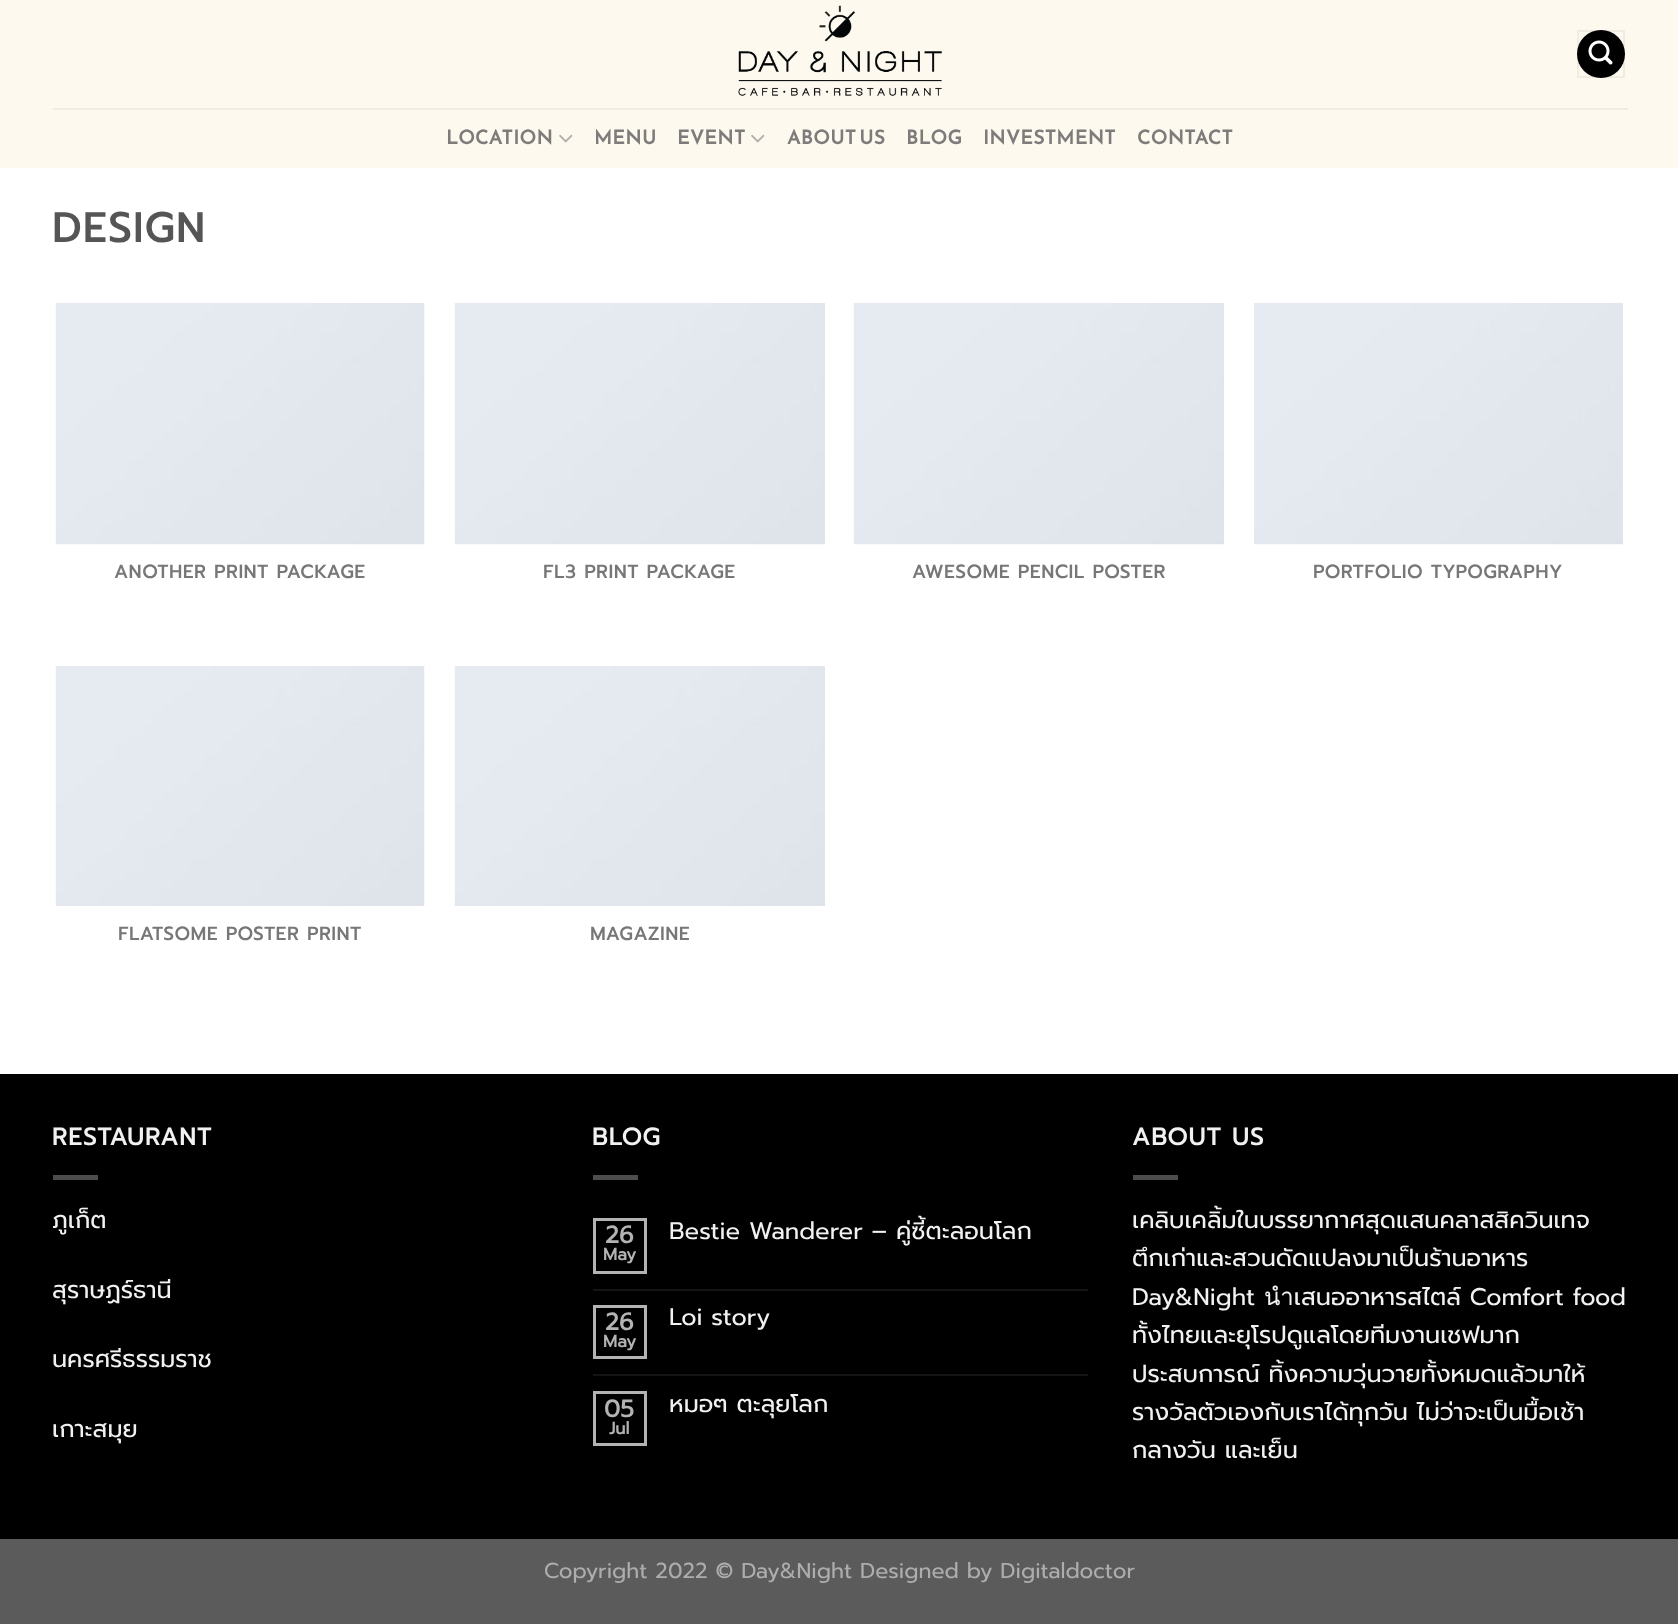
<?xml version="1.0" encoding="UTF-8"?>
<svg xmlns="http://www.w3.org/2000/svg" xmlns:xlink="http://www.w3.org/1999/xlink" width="1678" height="1624">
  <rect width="100%" height="100%" fill="#5b5b5b" />
  <rect y="168" width="1678" height="906" fill="#ffffff" />
  <rect width="1678" height="168" fill="#fef9ef" />
  <image x="738" y="5" width="204" height="91" xlink:href="image1.png" />
  <circle cx="1601" cy="54" r="24" fill="#000000" />
  <rect x="1578" y="31" width="46" height="46" fill="none" stroke="#000000" stroke-opacity="0.05" stroke-width="2" />
  <image x="1588" y="40" width="25" height="25" xlink:href="image2.png" />
  <rect x="53" y="108" width="1575" height="2" fill="#f0ece3" />
  <image x="559" y="134" width="14" height="9" xlink:href="image3.png" />
  <image x="751" y="134" width="14" height="9" xlink:href="image3.png" />
  <image x="55" y="303" width="370" height="242" xlink:href="image4.png" />
  <image x="454" y="303" width="371" height="242" xlink:href="image5.png" />
  <image x="853" y="303" width="371" height="242" xlink:href="image5.png" />
  <image x="1254" y="303" width="369" height="242" xlink:href="image6.png" />
  <image x="55" y="666" width="370" height="240" xlink:href="image7.png" />
  <image x="454" y="666" width="371" height="240" xlink:href="image8.png" />
  <rect y="1074" width="1678" height="465" fill="#000000" />
  <rect x="53" y="1175" width="45" height="5" fill="#4d4d4d" />
  <rect x="593" y="1175" width="45" height="5" fill="#4d4d4d" />
  <rect x="594.5" y="1219.5" width="51" height="53" fill="none" stroke="#b3b3b3" stroke-width="3" />
  <rect x="593" y="1289" width="495" height="2" fill="#141414" />
  <rect x="594.5" y="1306.5" width="51" height="51" fill="none" stroke="#b3b3b3" stroke-width="3" />
  <rect x="593" y="1374" width="495" height="2" fill="#141414" />
  <rect x="594.5" y="1392.5" width="51" height="52" fill="none" stroke="#b3b3b3" stroke-width="3" />
  <rect x="1133" y="1175" width="45" height="5" fill="#4d4d4d" />
  <text x="446" y="144" style="font-family: Reem Kufi; font-size: 19.25px; font-weight: bold; letter-spacing: 0.4px; fill: #7d7c7b">LOCATION</text>
  <text x="594" y="144" style="font-family: Reem Kufi; font-size: 19.25px; font-weight: bold; letter-spacing: 0.4px; fill: #7d7c7b">MENU</text>
  <text x="677" y="144" style="font-family: Reem Kufi; font-size: 19.25px; font-weight: bold; letter-spacing: 0.4px; fill: #7d7c7b">EVENT</text>
  <text x="787" y="144" style="font-family: Reem Kufi; font-size: 19.25px; font-weight: bold; letter-spacing: 0.4px; fill: #7d7c7b">ABOUT US</text>
  <text x="906" y="144" style="font-family: Reem Kufi; font-size: 19.25px; font-weight: bold; letter-spacing: 0.4px; fill: #7d7c7b">BLOG</text>
  <text x="983" y="144" style="font-family: Reem Kufi; font-size: 19.25px; font-weight: bold; letter-spacing: 0.4px; fill: #7d7c7b">INVESTMENT</text>
  <text x="1137" y="144" style="font-family: Reem Kufi; font-size: 19.25px; font-weight: bold; letter-spacing: 0.4px; fill: #7d7c7b">CONTACT</text>
  <text x="52" y="242" style="font-family: Prompt; font-size: 41px; font-weight: bold; letter-spacing: 2px; fill: #555555">DESIGN</text>
  <text x="114" y="578" style="font-family: Prompt; font-size: 18.4px; font-weight: bold; letter-spacing: 0.9px; fill: #777777">ANOTHER PRINT PACKAGE</text>
  <text x="543" y="578" style="font-family: Prompt; font-size: 18.4px; font-weight: bold; letter-spacing: 0.9px; fill: #777777">FL3 PRINT PACKAGE</text>
  <text x="912" y="578" style="font-family: Prompt; font-size: 18.4px; font-weight: bold; letter-spacing: 0.9px; fill: #777777">AWESOME PENCIL POSTER</text>
  <text x="1313" y="578" style="font-family: Prompt; font-size: 18.4px; font-weight: bold; letter-spacing: 0.9px; fill: #777777">PORTFOLIO TYPOGRAPHY</text>
  <text x="118" y="940" style="font-family: Prompt; font-size: 18.4px; font-weight: bold; letter-spacing: 0.9px; fill: #777777">FLATSOME POSTER PRINT</text>
  <text x="590" y="940" style="font-family: Prompt; font-size: 18.4px; font-weight: bold; letter-spacing: 0.9px; fill: #777777">MAGAZINE</text>
  <text x="52" y="1145" style="font-family: Prompt; font-size: 24px; font-weight: bold; letter-spacing: 1.25px; fill: #f1f1f1">RESTAURANT</text>
  <text x="52" y="1228" style="font-family: Prompt; font-size: 24px; fill: #f1f1f1">ภูเก็ต</text>
  <text x="52" y="1298" style="font-family: Prompt; font-size: 24px; fill: #f1f1f1">สุราษฏร์ธานี</text>
  <text x="52" y="1367" style="font-family: Prompt; font-size: 24px; fill: #f1f1f1">นครศรีธรรมราช</text>
  <text x="52" y="1437" style="font-family: Prompt; font-size: 24px; fill: #f1f1f1">เกาะสมุย</text>
  <text x="592" y="1145" style="font-family: Prompt; font-size: 24px; font-weight: bold; letter-spacing: 1.25px; fill: #f1f1f1">BLOG</text>
  <text x="605" y="1243" style="font-family: Prompt; font-size: 24px; font-weight: bold; fill: #b3b3b3">26</text>
  <text x="603" y="1260" style="font-family: Prompt; font-size: 17px; font-weight: bold; fill: #b3b3b3">May</text>
  <text x="669" y="1239" style="font-family: Prompt; font-size: 24px; fill: #f1f1f1">Bestie Wanderer – คู่ซี้ตะลอนโลก</text>
  <text x="605" y="1330" style="font-family: Prompt; font-size: 24px; font-weight: bold; fill: #b3b3b3">26</text>
  <text x="603" y="1347" style="font-family: Prompt; font-size: 17px; font-weight: bold; fill: #b3b3b3">May</text>
  <text x="669" y="1325" style="font-family: Prompt; font-size: 24px; fill: #f1f1f1">Loi story</text>
  <text x="604" y="1417" style="font-family: Prompt; font-size: 24px; font-weight: bold; fill: #b3b3b3">05</text>
  <text x="609" y="1434" style="font-family: Prompt; font-size: 17px; font-weight: bold; fill: #b3b3b3">Jul</text>
  <text x="669" y="1412" style="font-family: Prompt; font-size: 24px; fill: #f1f1f1">หมอๆ ตะลุยโลก</text>
  <text x="1132" y="1145" style="font-family: Prompt; font-size: 24px; font-weight: bold; letter-spacing: 1.25px; fill: #f1f1f1">ABOUT US</text>
  <text x="1132" y="1228" style="font-family: Prompt; font-size: 24px; fill: #f1f1f1">เคลิบเคลิ้มในบรรยากาศสุดแสนคลาสสิควินเทจ</text>
  <text x="1132" y="1266" style="font-family: Prompt; font-size: 24px; fill: #f1f1f1">ตึกเก่าและสวนดัดแปลงมาเป็นร้านอาหาร</text>
  <text x="1132" y="1305" style="font-family: Prompt; font-size: 24px; fill: #f1f1f1">Day&amp;Night นำเสนออาหารสไตล์ Comfort food</text>
  <text x="1132" y="1343" style="font-family: Prompt; font-size: 24px; fill: #f1f1f1">ทั้งไทยและยุโรปดูแลโดยทีมงานเชฟมาก</text>
  <text x="1132" y="1382" style="font-family: Prompt; font-size: 24px; fill: #f1f1f1">ประสบการณ์ ทิ้งความวุ่นวายทั้งหมดแล้วมาให้</text>
  <text x="1132" y="1420" style="font-family: Prompt; font-size: 24px; fill: #f1f1f1">รางวัลตัวเองกับเราได้ทุกวัน ไม่ว่าจะเป็นมื้อเช้า</text>
  <text x="1132" y="1458" style="font-family: Prompt; font-size: 24px; fill: #f1f1f1">กลางวัน และเย็น</text>
  <text x="544" y="1578" style="font-family: Prompt; font-size: 21.6px; fill: #adadad">Copyright 2022 © Day&amp;Night Designed by Digitaldoctor</text>
</svg>
